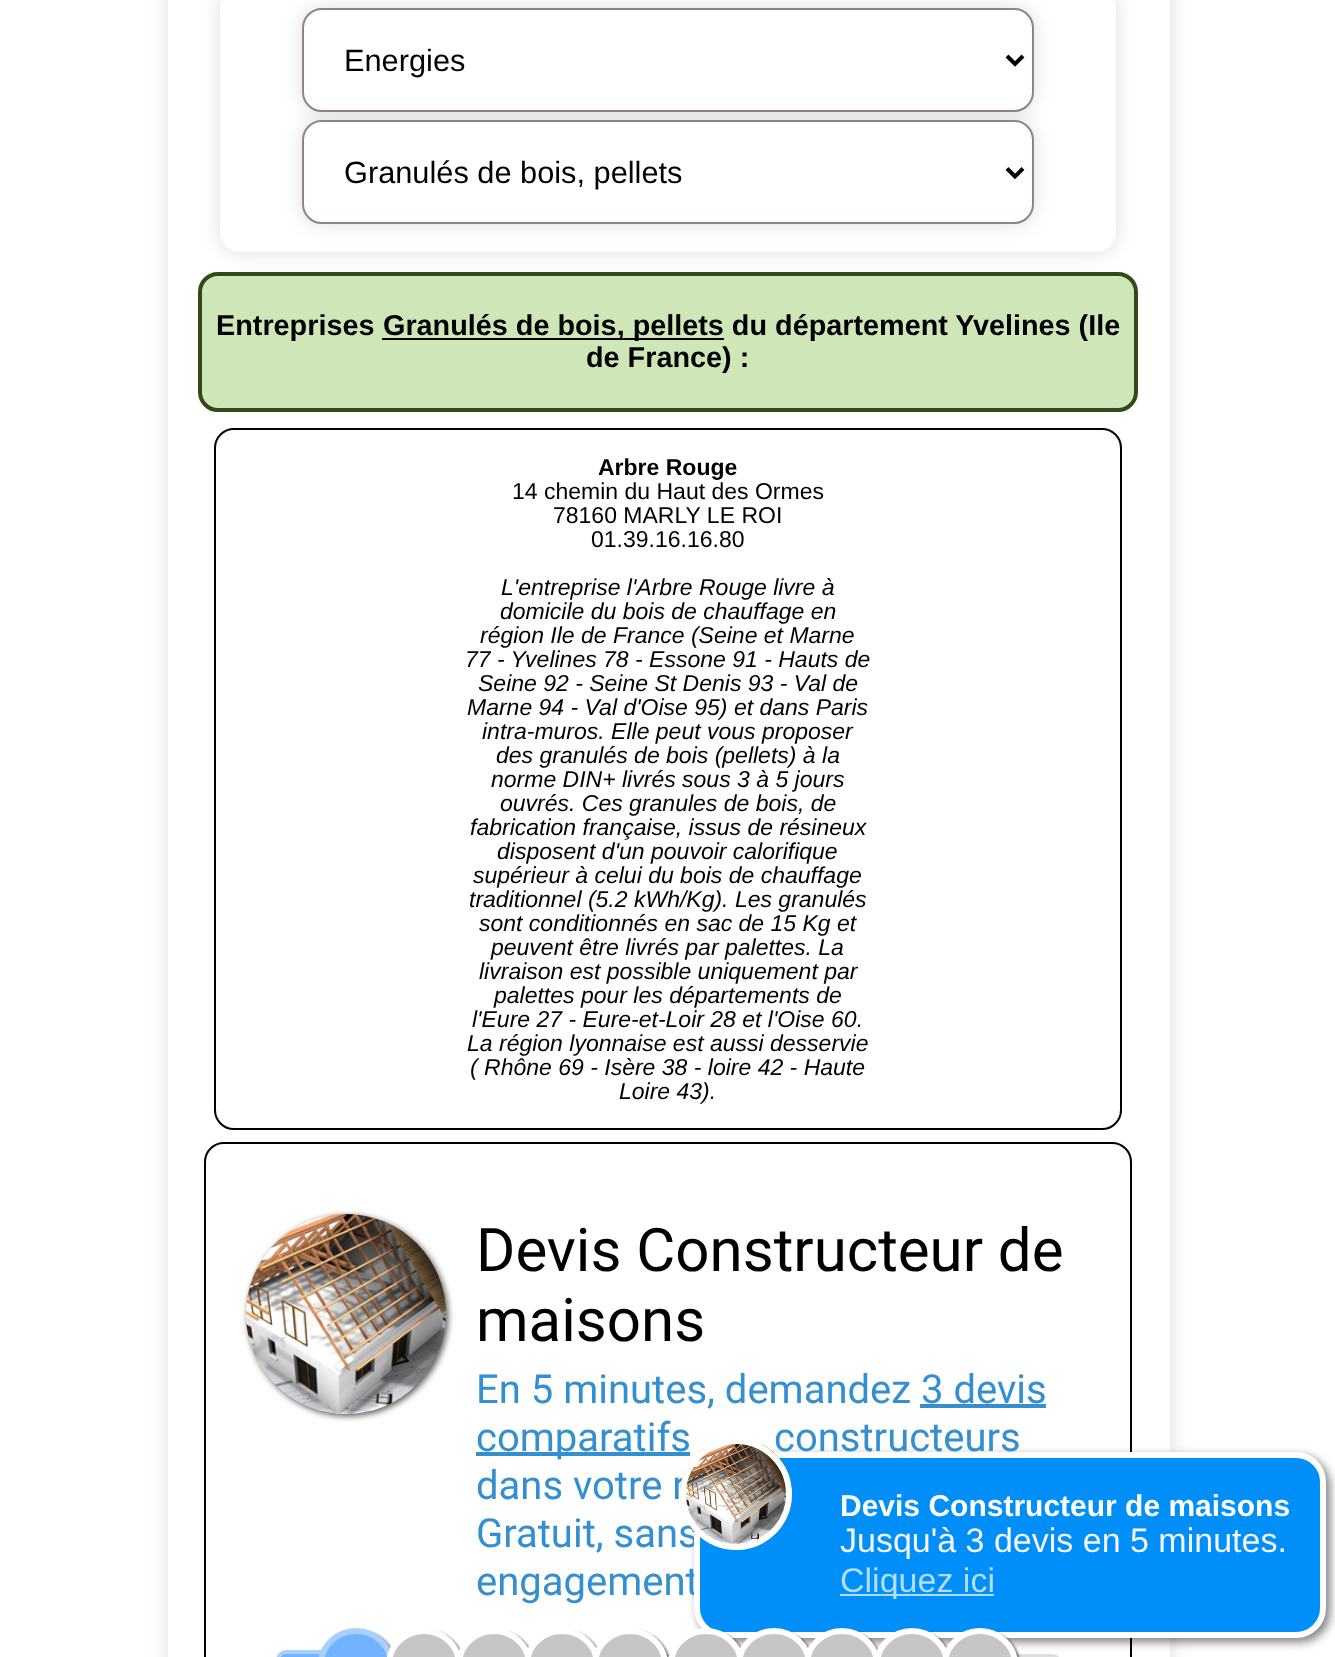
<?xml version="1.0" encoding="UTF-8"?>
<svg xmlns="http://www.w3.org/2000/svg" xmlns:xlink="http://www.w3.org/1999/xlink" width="1335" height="1657">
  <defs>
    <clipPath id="clip1"><path d="M 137 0 h 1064 v 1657 h -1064 z m 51 -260 h 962 c 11 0 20 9 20 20 v 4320 c 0 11 -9 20 -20 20 h -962 c -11 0 -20 -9 -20 -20 v -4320 c 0 -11 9 -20 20 -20 z" clip-rule="evenodd" /></clipPath>
  </defs>
  <rect width="100%" height="100%" fill="#ffffff" />
  <g clip-path="url(#clip1)">
    <rect x="168" y="-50" width="1002" height="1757" rx="20" fill="#000000" fill-opacity="0.13" filter="blur(10px)" />
  </g>
  <rect x="200" y="274" width="936" height="136" rx="18" fill="#cfe6b8" stroke="#324a1a" stroke-width="4" />
  <rect x="220" y="-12" width="896" height="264" rx="20" fill="#000000" fill-opacity="0.13" filter="blur(10px)" />
  <rect x="220" y="-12" width="896" height="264" rx="20" fill="#ffffff" />
  <rect x="302" y="8" width="732" height="104" rx="20" fill="#000000" fill-opacity="0.13" filter="blur(10px)" />
  <rect x="303" y="9" width="730" height="102" rx="19" fill="#ffffff" stroke="#8f8484" stroke-width="2" />
  <path d="M 1007 56 l 8 8 l 8 -8" fill="none" stroke="#000000" stroke-width="4" />
  <rect x="302" y="120" width="732" height="104" rx="20" fill="#000000" fill-opacity="0.13" filter="blur(10px)" />
  <rect x="303" y="121" width="730" height="102" rx="19" fill="#ffffff" stroke="#8f8484" stroke-width="2" />
  <path d="M 1007 168.5 l 8 8 l 8 -8" fill="none" stroke="#000000" stroke-width="4" />
  <rect x="382" y="338" width="342" height="2" fill="#000000" />
  <rect x="215" y="429" width="906" height="700" rx="19" fill="none" stroke="#000000" stroke-width="2" />
  <rect x="205" y="1143" width="926" height="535" rx="19" fill="none" stroke="#000000" stroke-width="2" />
  <rect x="248" y="1216" width="200" height="200" rx="100" fill="#555555" filter="blur(3px)" />
  <image x="246" y="1214" width="200" height="200" xlink:href="image1.png" />
  <rect x="920" y="1404" width="126" height="4" fill="#348fd1" />
  <rect x="476" y="1452" width="214" height="4" fill="#348fd1" />
  <rect x="698" y="1456" width="632" height="186" rx="30" fill="#000000" fill-opacity="0.5" filter="blur(5px)" />
  <rect x="276" y="1654" width="784" height="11" rx="8" fill="#dddddd" />
  <rect x="278" y="1652" width="76" height="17" rx="8" fill="#71b3ff" stroke="#a7d0ff" stroke-width="4" />
  <rect x="320" y="1630" width="76" height="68" rx="38" fill="#000000" fill-opacity="0.5" filter="blur(1px)" />
  <rect x="321" y="1631" width="70" height="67" rx="35" fill="#71b3ff" stroke="#a7d0ff" stroke-width="6" />
  <rect x="388" y="1630" width="76" height="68" rx="38" fill="#000000" fill-opacity="0.5" filter="blur(1px)" />
  <rect x="389" y="1631" width="70" height="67" rx="35" fill="#c6c6c6" stroke="#ffffff" stroke-width="6" />
  <rect x="458" y="1630" width="76" height="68" rx="38" fill="#000000" fill-opacity="0.5" filter="blur(1px)" />
  <rect x="459" y="1631" width="70" height="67" rx="35" fill="#c6c6c6" stroke="#ffffff" stroke-width="6" />
  <rect x="526" y="1630" width="76" height="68" rx="38" fill="#000000" fill-opacity="0.5" filter="blur(1px)" />
  <rect x="527" y="1631" width="70" height="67" rx="35" fill="#c6c6c6" stroke="#ffffff" stroke-width="6" />
  <rect x="594" y="1630" width="76" height="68" rx="38" fill="#000000" fill-opacity="0.5" filter="blur(1px)" />
  <rect x="595" y="1631" width="70" height="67" rx="35" fill="#c6c6c6" stroke="#ffffff" stroke-width="6" />
  <text x="344" y="71" style="font-family: Liberation Sans; font-size: 30.75px; fill: #000000">Energies</text>
  <text x="344" y="183" style="font-family: Liberation Sans; font-size: 30.75px; fill: #000000">Granulés de bois, pellets</text>
  <text x="216" y="335" style="font-family: Liberation Sans; font-size: 28.8px; font-weight: bold; fill: #000000">Entreprises</text>
  <text x="383" y="335" style="font-family: Liberation Sans; font-size: 28.8px; font-weight: bold; fill: #000000">Granulés de bois, pellets du département Yvelines (Ile</text>
  <text x="586" y="367" style="font-family: Liberation Sans; font-size: 28.8px; font-weight: bold; fill: #000000">de France) :</text>
  <text x="598" y="475" style="font-family: Liberation Sans; font-size: 23px; font-weight: bold; fill: #000000">Arbre Rouge</text>
  <text x="512" y="499" style="font-family: Liberation Sans; font-size: 23px; fill: #000000">14 chemin du Haut des Ormes</text>
  <text x="553" y="523" style="font-family: Liberation Sans; font-size: 23px; fill: #000000">78160 MARLY LE ROI</text>
  <text x="591" y="547" style="font-family: Liberation Sans; font-size: 23px; fill: #000000">01.39.16.16.80</text>
  <text x="501" y="595" style="font-family: Liberation Sans; font-size: 23px; font-style: italic; fill: #000000">L'entreprise l'Arbre Rouge livre à</text>
  <text x="500" y="619" style="font-family: Liberation Sans; font-size: 23px; font-style: italic; fill: #000000">domicile du bois de chauffage en</text>
  <text x="480" y="643" style="font-family: Liberation Sans; font-size: 23px; font-style: italic; fill: #000000">région Ile de France (Seine et Marne</text>
  <text x="465" y="667" style="font-family: Liberation Sans; font-size: 23px; font-style: italic; fill: #000000">77 - Yvelines 78 - Essone 91 - Hauts de</text>
  <text x="478" y="691" style="font-family: Liberation Sans; font-size: 23px; font-style: italic; fill: #000000">Seine 92 - Seine St Denis 93 - Val de</text>
  <text x="467" y="715" style="font-family: Liberation Sans; font-size: 23px; font-style: italic; fill: #000000">Marne 94 - Val d'Oise 95) et dans Paris</text>
  <text x="482" y="739" style="font-family: Liberation Sans; font-size: 23px; font-style: italic; fill: #000000">intra-muros. Elle peut vous proposer</text>
  <text x="496" y="763" style="font-family: Liberation Sans; font-size: 23px; font-style: italic; fill: #000000">des granulés de bois (pellets) à la</text>
  <text x="491" y="787" style="font-family: Liberation Sans; font-size: 23px; font-style: italic; fill: #000000">norme DIN+ livrés sous 3 à 5 jours</text>
  <text x="500" y="811" style="font-family: Liberation Sans; font-size: 23px; font-style: italic; fill: #000000">ouvrés. Ces granules de bois, de</text>
  <text x="470" y="835" style="font-family: Liberation Sans; font-size: 23px; font-style: italic; fill: #000000">fabrication française, issus de résineux</text>
  <text x="497" y="859" style="font-family: Liberation Sans; font-size: 23px; font-style: italic; fill: #000000">disposent d'un pouvoir calorifique</text>
  <text x="473" y="883" style="font-family: Liberation Sans; font-size: 23px; font-style: italic; fill: #000000">supérieur à celui du bois de chauffage</text>
  <text x="469" y="907" style="font-family: Liberation Sans; font-size: 23px; font-style: italic; fill: #000000">traditionnel (5.2 kWh/Kg). Les granulés</text>
  <text x="479" y="931" style="font-family: Liberation Sans; font-size: 23px; font-style: italic; fill: #000000">sont conditionnés en sac de 15 Kg et</text>
  <text x="491" y="955" style="font-family: Liberation Sans; font-size: 23px; font-style: italic; fill: #000000">peuvent être livrés par palettes. La</text>
  <text x="479" y="979" style="font-family: Liberation Sans; font-size: 23px; font-style: italic; fill: #000000">livraison est possible uniquement par</text>
  <text x="494" y="1003" style="font-family: Liberation Sans; font-size: 23px; font-style: italic; fill: #000000">palettes pour les départements de</text>
  <text x="472" y="1027" style="font-family: Liberation Sans; font-size: 23px; font-style: italic; fill: #000000">l'Eure 27 - Eure-et-Loir 28 et l'Oise 60.</text>
  <text x="467" y="1051" style="font-family: Liberation Sans; font-size: 23px; font-style: italic; fill: #000000">La région lyonnaise est aussi desservie</text>
  <text x="470" y="1075" style="font-family: Liberation Sans; font-size: 23px; font-style: italic; fill: #000000">( Rhône 69 - Isère 38 - loire 42 - Haute</text>
  <text x="619" y="1099" style="font-family: Liberation Sans; font-size: 23px; font-style: italic; fill: #000000">Loire 43).</text>
  <text x="476" y="1271" style="font-family: Roboto; font-size: 60px; fill: #000000">Devis Constructeur de</text>
  <text x="476" y="1341" style="font-family: Roboto; font-size: 60px; fill: #000000">maisons</text>
  <text x="476" y="1403" style="font-family: Roboto; font-size: 40px; fill: #348fd1">En 5 minutes, demandez 3 devis</text>
  <text x="476" y="1451" style="font-family: Roboto; font-size: 40px; fill: #348fd1">comparatifs</text>
  <text x="774" y="1451" style="font-family: Roboto; font-size: 40px; fill: #348fd1">constructeurs</text>
  <text x="476" y="1499" style="font-family: Roboto; font-size: 40px; fill: #348fd1">dans votre r</text>
  <text x="476" y="1547" style="font-family: Roboto; font-size: 40px; fill: #348fd1">Gratuit, sans</text>
  <text x="476" y="1595" style="font-family: Roboto; font-size: 40px; fill: #348fd1">engagement</text>
  <rect x="697" y="1455" width="626" height="180" rx="27" fill="#008ef8" stroke="#ffffff" stroke-width="6" />
  <rect x="670" y="1630" width="76" height="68" rx="38" fill="#000000" fill-opacity="0.5" filter="blur(1px)" />
  <rect x="671" y="1631" width="70" height="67" rx="35" fill="#c6c6c6" stroke="#ffffff" stroke-width="6" />
  <rect x="738" y="1630" width="76" height="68" rx="38" fill="#000000" fill-opacity="0.5" filter="blur(1px)" />
  <rect x="739" y="1631" width="70" height="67" rx="35" fill="#c6c6c6" stroke="#ffffff" stroke-width="6" />
  <rect x="806" y="1630" width="76" height="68" rx="38" fill="#000000" fill-opacity="0.5" filter="blur(1px)" />
  <rect x="807" y="1631" width="70" height="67" rx="35" fill="#c6c6c6" stroke="#ffffff" stroke-width="6" />
  <rect x="876" y="1630" width="76" height="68" rx="38" fill="#000000" fill-opacity="0.5" filter="blur(1px)" />
  <rect x="877" y="1631" width="70" height="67" rx="35" fill="#c6c6c6" stroke="#ffffff" stroke-width="6" />
  <rect x="944" y="1630" width="76" height="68" rx="38" fill="#000000" fill-opacity="0.5" filter="blur(1px)" />
  <rect x="945" y="1631" width="70" height="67" rx="35" fill="#c6c6c6" stroke="#ffffff" stroke-width="6" />
  <image x="680" y="1444" width="112" height="100" xlink:href="image2.png" />
  <circle cx="736" cy="1494" r="53" fill="none" stroke="#ffffff" stroke-width="6" />
  <text x="840" y="1516" style="font-family: Liberation Sans; font-size: 30px; font-weight: bold; fill: #ffffff">Devis Constructeur de maisons</text>
  <text x="840" y="1552" style="font-family: Liberation Sans; font-size: 34px; fill: #f4f4f4">Jusqu'à 3 devis en 5 minutes.</text>
  <rect x="840" y="1594" width="154" height="2" fill="#b1ddff" />
  <text x="840" y="1592" style="font-family: Liberation Sans; font-size: 34px; fill: #b1ddff">Cliquez ici</text>
</svg>
